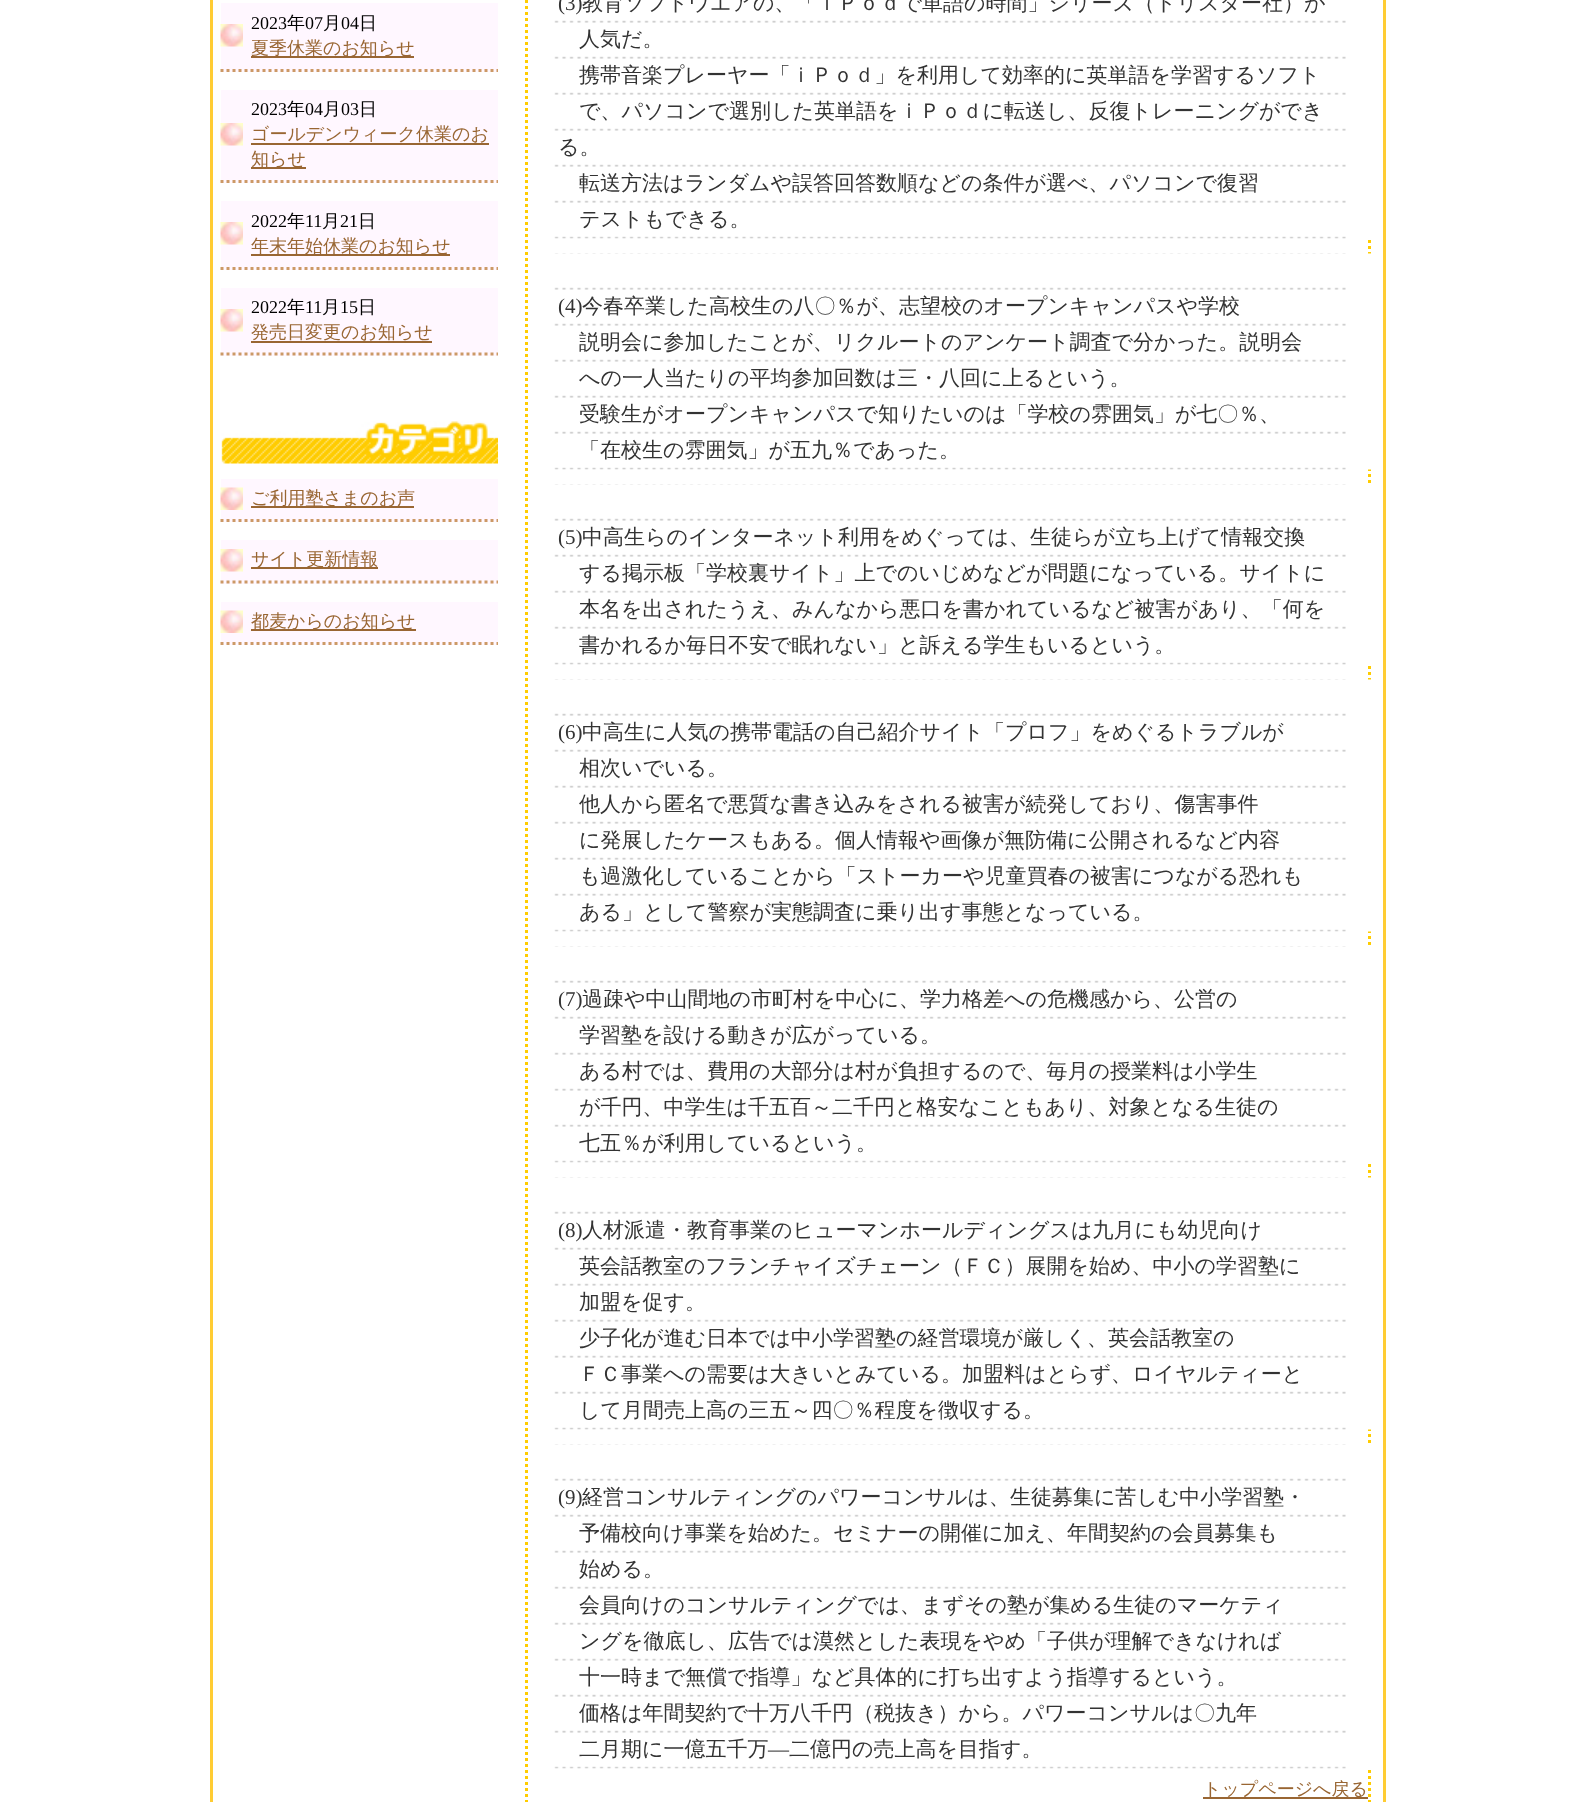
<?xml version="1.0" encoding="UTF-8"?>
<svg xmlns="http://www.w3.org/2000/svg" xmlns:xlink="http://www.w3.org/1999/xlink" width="1596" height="1802">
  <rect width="100%" height="100%" fill="#ffffff" />
  <rect x="1383" width="3" height="1802" fill="#ffcc33" />
  <rect x="210" width="3" height="1802" fill="#ffcc33" />
  <rect x="221" y="3" width="277" height="69" fill="#fff7ff" />
  <image x="220" y="24" width="23" height="23" xlink:href="image1.png" />
  <path d="M 220.5 70.5 h 277.5" fill="none" stroke="#cc9966" stroke-width="3" stroke-dasharray="3 3" />
  <rect x="251" y="56" width="163" height="2" fill="#996633" />
  <rect x="221" y="90" width="277" height="93" fill="#fff7ff" />
  <image x="220" y="123" width="23" height="23" xlink:href="image1.png" />
  <path d="M 220.5 181.5 h 277.5" fill="none" stroke="#cc9966" stroke-width="3" stroke-dasharray="3 3" />
  <rect x="251" y="143" width="238" height="2" fill="#996633" />
  <rect x="251" y="167" width="55" height="2" fill="#996633" />
  <rect x="221" y="201" width="277" height="69" fill="#fff7ff" />
  <image x="220" y="222" width="23" height="23" xlink:href="image1.png" />
  <path d="M 220.5 268.5 h 277.5" fill="none" stroke="#cc9966" stroke-width="3" stroke-dasharray="3 3" />
  <rect x="251" y="254" width="199" height="2" fill="#996633" />
  <rect x="221" y="288" width="277" height="68" fill="#fff7ff" />
  <image x="220" y="309" width="23" height="23" xlink:href="image1.png" />
  <path d="M 220.5 354 h 277.5" fill="none" stroke="#cc9966" stroke-width="3" stroke-dasharray="3 3" />
  <rect x="251" y="341" width="181" height="2" fill="#996633" />
  <image x="221" y="421" width="277" height="43" xlink:href="image2.png" />
  <rect x="221" y="479" width="277" height="43" fill="#fff7ff" />
  <image x="220" y="487" width="23" height="23" xlink:href="image3.png" />
  <path d="M 220.5 520.5 h 277.5" fill="none" stroke="#cc9966" stroke-width="3" stroke-dasharray="3 3" />
  <rect x="251" y="506" width="163" height="2" fill="#996633" />
  <rect x="221" y="540" width="277" height="44" fill="#fff7ff" />
  <image x="220" y="549" width="23" height="23" xlink:href="image1.png" />
  <path d="M 220.5 582 h 277.5" fill="none" stroke="#cc9966" stroke-width="3" stroke-dasharray="3 3" />
  <rect x="251" y="567" width="127" height="2" fill="#996633" />
  <rect x="221" y="602" width="277" height="43" fill="#fff7ff" />
  <image x="220" y="610" width="23" height="23" xlink:href="image3.png" />
  <path d="M 220.5 643.5 h 277.5" fill="none" stroke="#cc9966" stroke-width="3" stroke-dasharray="3 3" />
  <rect x="251" y="629" width="165" height="2" fill="#996633" />
  <path d="M 1369.5 -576 v 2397" fill="none" stroke="#ffcc00" stroke-width="3" stroke-dasharray="3 3" />
  <path d="M 526.5 -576 v 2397" fill="none" stroke="#ffcc00" stroke-width="3" stroke-dasharray="3 3" />
  <image x="554" y="0" width="817" height="239" xlink:href="image4.png" />
  <image x="554" y="253" width="817" height="217" xlink:href="image5.png" />
  <image x="554" y="484" width="817" height="181" xlink:href="image6.png" />
  <image x="554" y="679" width="817" height="253" xlink:href="image7.png" />
  <image x="554" y="946" width="817" height="217" xlink:href="image8.png" />
  <image x="554" y="1177" width="817" height="253" xlink:href="image9.png" />
  <image x="554" y="1444" width="817" height="325" xlink:href="image10.png" />
  <rect x="1203" y="1797" width="165" height="2" fill="#996633" />
  <text x="251" y="29" style="font-family: Liberation Serif; font-size: 18px; fill: #000000">2023</text>
  <text x="287" y="29" style="font-family: WenQuanYi Zen Hei; font-size: 18px; font-weight: 500; fill: #000000">年</text>
  <text x="305" y="29" style="font-family: Liberation Serif; font-size: 18px; fill: #000000">07</text>
  <text x="323" y="29" style="font-family: WenQuanYi Zen Hei; font-size: 18px; font-weight: 500; fill: #000000">月</text>
  <text x="341" y="29" style="font-family: Liberation Serif; font-size: 18px; fill: #000000">04</text>
  <text x="359" y="29" style="font-family: WenQuanYi Zen Hei; font-size: 18px; font-weight: 500; fill: #000000">日</text>
  <text x="251" y="54" style="font-family: WenQuanYi Zen Hei; font-size: 18px; font-weight: 500; fill: #996633">夏季休業のお知らせ</text>
  <text x="251" y="115" style="font-family: Liberation Serif; font-size: 18px; fill: #000000">2023</text>
  <text x="287" y="115" style="font-family: WenQuanYi Zen Hei; font-size: 18px; font-weight: 500; fill: #000000">年</text>
  <text x="305" y="115" style="font-family: Liberation Serif; font-size: 18px; fill: #000000">04</text>
  <text x="323" y="115" style="font-family: WenQuanYi Zen Hei; font-size: 18px; font-weight: 500; fill: #000000">月</text>
  <text x="341" y="115" style="font-family: Liberation Serif; font-size: 18px; fill: #000000">03</text>
  <text x="359" y="115" style="font-family: WenQuanYi Zen Hei; font-size: 18px; font-weight: 500; fill: #000000">日</text>
  <text x="251" y="140" style="font-family: WenQuanYi Zen Hei; font-size: 18px; font-weight: 500; fill: #996633">ゴールデンウィーク休業のお</text>
  <text x="251" y="165" style="font-family: WenQuanYi Zen Hei; font-size: 18px; font-weight: 500; fill: #996633">知らせ</text>
  <text x="251" y="227" style="font-family: Liberation Serif; font-size: 18px; fill: #000000">2022</text>
  <text x="287" y="227" style="font-family: WenQuanYi Zen Hei; font-size: 18px; font-weight: 500; fill: #000000">年</text>
  <text x="305" y="227" style="font-family: Liberation Serif; font-size: 18px; fill: #000000">11</text>
  <text x="322" y="227" style="font-family: WenQuanYi Zen Hei; font-size: 18px; font-weight: 500; fill: #000000">月</text>
  <text x="340" y="227" style="font-family: Liberation Serif; font-size: 18px; fill: #000000">21</text>
  <text x="358" y="227" style="font-family: WenQuanYi Zen Hei; font-size: 18px; font-weight: 500; fill: #000000">日</text>
  <text x="251" y="252" style="font-family: WenQuanYi Zen Hei; font-size: 18px; font-weight: 500; fill: #996633">年末年始休業のお知らせ</text>
  <text x="251" y="313" style="font-family: Liberation Serif; font-size: 18px; fill: #000000">2022</text>
  <text x="287" y="313" style="font-family: WenQuanYi Zen Hei; font-size: 18px; font-weight: 500; fill: #000000">年</text>
  <text x="305" y="313" style="font-family: Liberation Serif; font-size: 18px; fill: #000000">11</text>
  <text x="322" y="313" style="font-family: WenQuanYi Zen Hei; font-size: 18px; font-weight: 500; fill: #000000">月</text>
  <text x="340" y="313" style="font-family: Liberation Serif; font-size: 18px; fill: #000000">15</text>
  <text x="358" y="313" style="font-family: WenQuanYi Zen Hei; font-size: 18px; font-weight: 500; fill: #000000">日</text>
  <text x="251" y="338" style="font-family: WenQuanYi Zen Hei; font-size: 18px; font-weight: 500; fill: #996633">発売日変更のお知らせ</text>
  <text x="251" y="504" style="font-family: WenQuanYi Zen Hei; font-size: 18px; font-weight: 500; fill: #996633">ご利用塾さまのお声</text>
  <text x="251" y="565" style="font-family: WenQuanYi Zen Hei; font-size: 18px; font-weight: 500; fill: #996633">サイト更新情報</text>
  <text x="251" y="627" style="font-family: WenQuanYi Zen Hei; font-size: 18px; font-weight: 500; fill: #996633">都麦からのお知らせ</text>
  <text x="558" y="10" style="font-family: Liberation Serif; font-size: 21px; fill: #333333">(3)</text>
  <text x="582" y="10" style="font-family: WenQuanYi Zen Hei; font-size: 21px; font-weight: 500; fill: #333333">教育ソフトウエアの、「ｉＰｏｄで単語の時間」シリーズ（トリスター社）が</text>
  <text x="579" y="46" style="font-family: WenQuanYi Zen Hei; font-size: 21px; font-weight: 500; fill: #333333">人気だ。</text>
  <text x="579" y="82" style="font-family: WenQuanYi Zen Hei; font-size: 21px; font-weight: 500; fill: #333333">携帯音楽プレーヤー「ｉＰｏｄ」を利用して効率的に英単語を学習するソフト</text>
  <text x="579" y="118" style="font-family: WenQuanYi Zen Hei; font-size: 21px; font-weight: 500; fill: #333333">で、パソコンで選別した英単語をｉＰｏｄに転送し、反復トレーニングができ</text>
  <text x="558" y="154" style="font-family: WenQuanYi Zen Hei; font-size: 21px; font-weight: 500; fill: #333333">る。</text>
  <text x="579" y="190" style="font-family: WenQuanYi Zen Hei; font-size: 21px; font-weight: 500; fill: #333333">転送方法はランダムや誤答回答数順などの条件が選べ、パソコンで復習</text>
  <text x="579" y="226" style="font-family: WenQuanYi Zen Hei; font-size: 21px; font-weight: 500; fill: #333333">テストもできる。</text>
  <text x="558" y="313" style="font-family: Liberation Serif; font-size: 21px; fill: #333333">(4)</text>
  <text x="582" y="313" style="font-family: WenQuanYi Zen Hei; font-size: 21px; font-weight: 500; fill: #333333">今春卒業した高校生の八〇％が、志望校のオープンキャンパスや学校</text>
  <text x="579" y="349" style="font-family: WenQuanYi Zen Hei; font-size: 21px; font-weight: 500; fill: #333333">説明会に参加したことが、リクルートのアンケート調査で分かった。説明会</text>
  <text x="579" y="385" style="font-family: WenQuanYi Zen Hei; font-size: 21px; font-weight: 500; fill: #333333">への一人当たりの平均参加回数は三・八回に上るという。</text>
  <text x="579" y="421" style="font-family: WenQuanYi Zen Hei; font-size: 21px; font-weight: 500; fill: #333333">受験生がオープンキャンパスで知りたいのは「学校の雰囲気」が七〇％、</text>
  <text x="579" y="457" style="font-family: WenQuanYi Zen Hei; font-size: 21px; font-weight: 500; fill: #333333">「在校生の雰囲気」が五九％であった。</text>
  <text x="558" y="544" style="font-family: Liberation Serif; font-size: 21px; fill: #333333">(5)</text>
  <text x="582" y="544" style="font-family: WenQuanYi Zen Hei; font-size: 21px; font-weight: 500; fill: #333333">中高生らのインターネット利用をめぐっては、生徒らが立ち上げて情報交換</text>
  <text x="579" y="580" style="font-family: WenQuanYi Zen Hei; font-size: 21px; font-weight: 500; fill: #333333">する掲示板「学校裏サイト」上でのいじめなどが問題になっている。サイトに</text>
  <text x="579" y="616" style="font-family: WenQuanYi Zen Hei; font-size: 21px; font-weight: 500; fill: #333333">本名を出されたうえ、みんなから悪口を書かれているなど被害があり、「何を</text>
  <text x="579" y="652" style="font-family: WenQuanYi Zen Hei; font-size: 21px; font-weight: 500; fill: #333333">書かれるか毎日不安で眠れない」と訴える学生もいるという。</text>
  <text x="558" y="739" style="font-family: Liberation Serif; font-size: 21px; fill: #333333">(6)</text>
  <text x="582" y="739" style="font-family: WenQuanYi Zen Hei; font-size: 21px; font-weight: 500; fill: #333333">中高生に人気の携帯電話の自己紹介サイト「プロフ」をめぐるトラブルが</text>
  <text x="579" y="775" style="font-family: WenQuanYi Zen Hei; font-size: 21px; font-weight: 500; fill: #333333">相次いでいる。</text>
  <text x="579" y="811" style="font-family: WenQuanYi Zen Hei; font-size: 21px; font-weight: 500; fill: #333333">他人から匿名で悪質な書き込みをされる被害が続発しており、傷害事件</text>
  <text x="579" y="847" style="font-family: WenQuanYi Zen Hei; font-size: 21px; font-weight: 500; fill: #333333">に発展したケースもある。個人情報や画像が無防備に公開されるなど内容</text>
  <text x="579" y="883" style="font-family: WenQuanYi Zen Hei; font-size: 21px; font-weight: 500; fill: #333333">も過激化していることから「ストーカーや児童買春の被害につながる恐れも</text>
  <text x="579" y="919" style="font-family: WenQuanYi Zen Hei; font-size: 21px; font-weight: 500; fill: #333333">ある」として警察が実態調査に乗り出す事態となっている。</text>
  <text x="558" y="1006" style="font-family: Liberation Serif; font-size: 21px; fill: #333333">(7)</text>
  <text x="582" y="1006" style="font-family: WenQuanYi Zen Hei; font-size: 21px; font-weight: 500; fill: #333333">過疎や中山間地の市町村を中心に、学力格差への危機感から、公営の</text>
  <text x="579" y="1042" style="font-family: WenQuanYi Zen Hei; font-size: 21px; font-weight: 500; fill: #333333">学習塾を設ける動きが広がっている。</text>
  <text x="579" y="1078" style="font-family: WenQuanYi Zen Hei; font-size: 21px; font-weight: 500; fill: #333333">ある村では、費用の大部分は村が負担するので、毎月の授業料は小学生</text>
  <text x="579" y="1114" style="font-family: WenQuanYi Zen Hei; font-size: 21px; font-weight: 500; fill: #333333">が千円、中学生は千五百～二千円と格安なこともあり、対象となる生徒の</text>
  <text x="579" y="1150" style="font-family: WenQuanYi Zen Hei; font-size: 21px; font-weight: 500; fill: #333333">七五％が利用しているという。</text>
  <text x="558" y="1237" style="font-family: Liberation Serif; font-size: 21px; fill: #333333">(8)</text>
  <text x="582" y="1237" style="font-family: WenQuanYi Zen Hei; font-size: 21px; font-weight: 500; fill: #333333">人材派遣・教育事業のヒューマンホールディングスは九月にも幼児向け</text>
  <text x="579" y="1273" style="font-family: WenQuanYi Zen Hei; font-size: 21px; font-weight: 500; fill: #333333">英会話教室のフランチャイズチェーン（ＦＣ）展開を始め、中小の学習塾に</text>
  <text x="579" y="1309" style="font-family: WenQuanYi Zen Hei; font-size: 21px; font-weight: 500; fill: #333333">加盟を促す。</text>
  <text x="579" y="1345" style="font-family: WenQuanYi Zen Hei; font-size: 21px; font-weight: 500; fill: #333333">少子化が進む日本では中小学習塾の経営環境が厳しく、英会話教室の</text>
  <text x="579" y="1381" style="font-family: WenQuanYi Zen Hei; font-size: 21px; font-weight: 500; fill: #333333">ＦＣ事業への需要は大きいとみている。加盟料はとらず、ロイヤルティーと</text>
  <text x="579" y="1417" style="font-family: WenQuanYi Zen Hei; font-size: 21px; font-weight: 500; fill: #333333">して月間売上高の三五～四〇％程度を徴収する。</text>
  <text x="558" y="1504" style="font-family: Liberation Serif; font-size: 21px; fill: #333333">(9)</text>
  <text x="582" y="1504" style="font-family: WenQuanYi Zen Hei; font-size: 21px; font-weight: 500; fill: #333333">経営コンサルティングのパワーコンサルは、生徒募集に苦しむ中小学習塾・</text>
  <text x="579" y="1540" style="font-family: WenQuanYi Zen Hei; font-size: 21px; font-weight: 500; fill: #333333">予備校向け事業を始めた。セミナーの開催に加え、年間契約の会員募集も</text>
  <text x="579" y="1576" style="font-family: WenQuanYi Zen Hei; font-size: 21px; font-weight: 500; fill: #333333">始める。</text>
  <text x="579" y="1612" style="font-family: WenQuanYi Zen Hei; font-size: 21px; font-weight: 500; fill: #333333">会員向けのコンサルティングでは、まずその塾が集める生徒のマーケティ</text>
  <text x="579" y="1648" style="font-family: WenQuanYi Zen Hei; font-size: 21px; font-weight: 500; fill: #333333">ングを徹底し、広告では漠然とした表現をやめ「子供が理解できなければ</text>
  <text x="579" y="1684" style="font-family: WenQuanYi Zen Hei; font-size: 21px; font-weight: 500; fill: #333333">十一時まで無償で指導」など具体的に打ち出すよう指導するという。</text>
  <text x="579" y="1720" style="font-family: WenQuanYi Zen Hei; font-size: 21px; font-weight: 500; fill: #333333">価格は年間契約で十万八千円（税抜き）から。パワーコンサルは〇九年</text>
  <text x="579" y="1756" style="font-family: WenQuanYi Zen Hei; font-size: 21px; font-weight: 500; fill: #333333">二月期に一億五千万</text>
  <text x="768" y="1756" style="font-family: Liberation Serif; font-size: 21px; fill: #333333">―</text>
  <text x="789" y="1756" style="font-family: WenQuanYi Zen Hei; font-size: 21px; font-weight: 500; fill: #333333">二億円の売上高を目指す。</text>
  <text x="1203" y="1795" style="font-family: WenQuanYi Zen Hei; font-size: 18px; font-weight: 500; fill: #996633">トップページへ戻る</text>
</svg>
